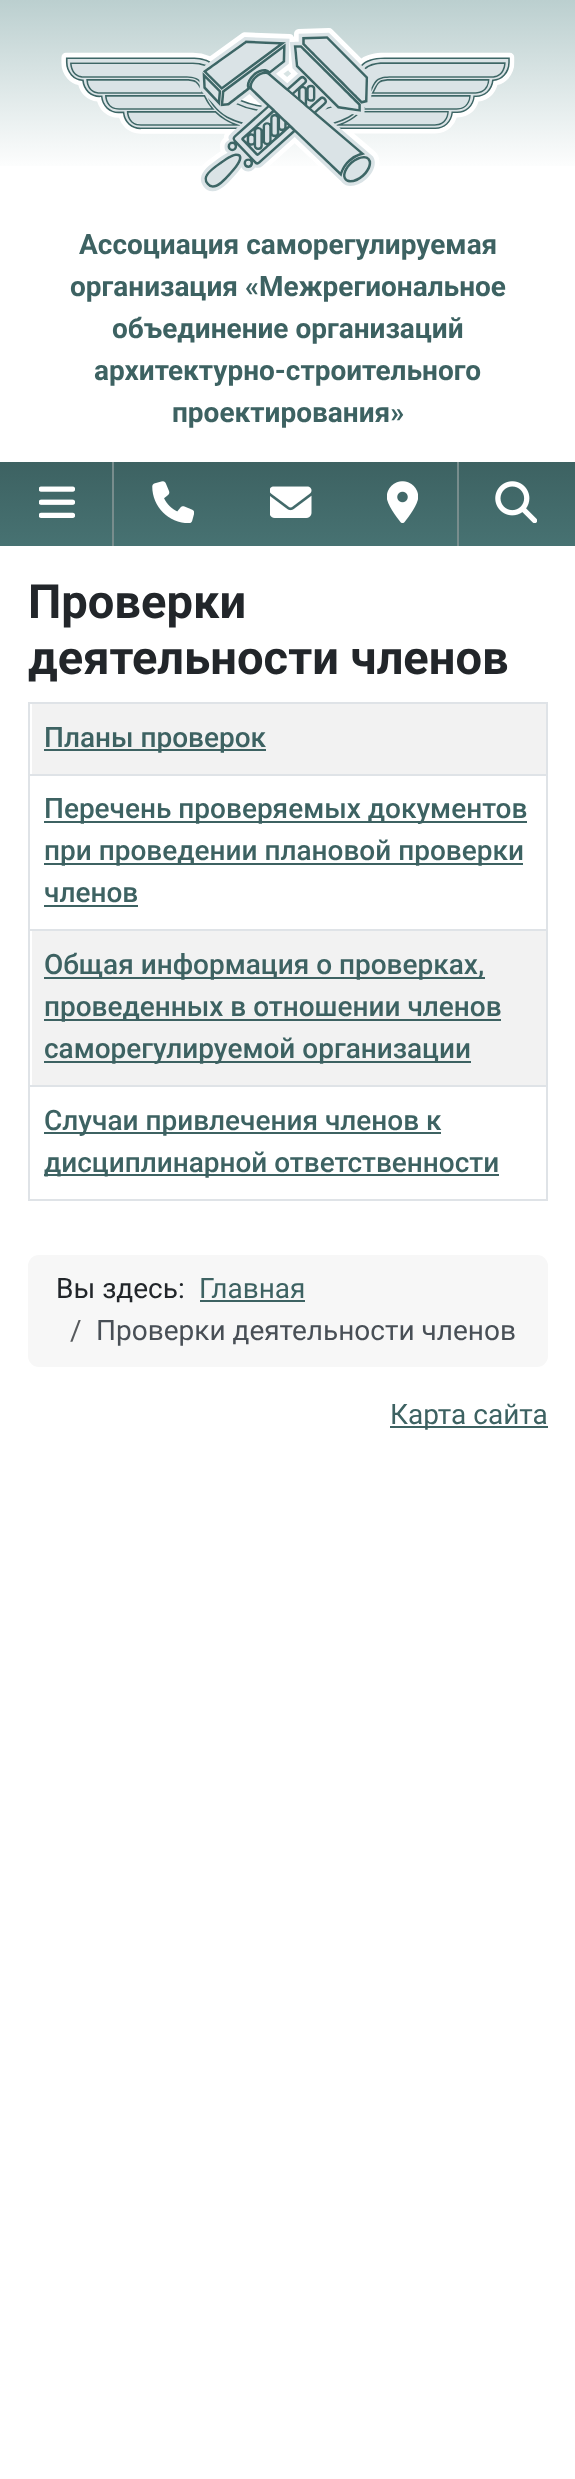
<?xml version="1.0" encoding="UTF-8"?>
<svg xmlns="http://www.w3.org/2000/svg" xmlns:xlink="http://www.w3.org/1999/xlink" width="575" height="2479">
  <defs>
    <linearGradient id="g1" gradientUnits="userSpaceOnUse" x1="288" y1="0" x2="288" y2="574"><stop offset="0" stop-color="#bbcfcf" /><stop offset="0.3" stop-color="#ffffff" /></linearGradient>
    <linearGradient id="g2" gradientUnits="userSpaceOnUse" x1="288" y1="462" x2="288" y2="546"><stop offset="0" stop-color="#3d6262" /><stop offset="1" stop-color="#477272" /></linearGradient>
  </defs>
  <rect width="100%" height="100%" fill="#ffffff" />
  <rect width="575" height="166" fill="url(#g1)" />
  <image x="61" y="28" width="454" height="164" xlink:href="image1.png" />
  <rect y="462" width="575" height="84" fill="url(#g2)" />
  <rect x="112" y="462" width="2" height="84" fill="#788d8d" />
  <image x="39" y="486" width="36" height="32" xlink:href="image2.png" />
  <image x="152" y="481" width="42" height="42" xlink:href="image3.png" />
  <image x="270" y="486" width="42" height="32" xlink:href="image4.png" />
  <image x="387" y="481" width="31" height="42" xlink:href="image5.png" />
  <rect x="457" y="462" width="2" height="84" fill="#788d8d" />
  <image x="495" y="481" width="42" height="42" xlink:href="image6.png" />
  <rect x="28" y="702" width="520" height="2" fill="#dfe3e7" />
  <rect x="32" y="704" width="514" height="70" fill="#f2f2f2" />
  <rect x="44" y="749" width="222" height="2" fill="#3d6262" />
  <rect x="28" y="774" width="520" height="2" fill="#dfe3e7" />
  <rect x="44" y="821" width="483" height="2" fill="#3d6262" />
  <rect x="44" y="863" width="479" height="2" fill="#3d6262" />
  <rect x="44" y="905" width="94" height="2" fill="#3d6262" />
  <rect x="28" y="929" width="520" height="2" fill="#dfe3e7" />
  <rect x="32" y="931" width="514" height="154" fill="#f2f2f2" />
  <rect x="44" y="977" width="441" height="2" fill="#3d6262" />
  <rect x="44" y="1019" width="457" height="2" fill="#3d6262" />
  <rect x="44" y="1061" width="427" height="2" fill="#3d6262" />
  <rect x="28" y="1085" width="520" height="2" fill="#dfe3e7" />
  <rect x="28" y="1199" width="520" height="2" fill="#dfe3e7" />
  <rect x="546" y="702" width="2" height="499" fill="#dfe3e7" />
  <rect x="28" y="702" width="2" height="499" fill="#dfe3e7" />
  <rect x="44" y="1132" width="397" height="2" fill="#3d6262" />
  <rect x="44" y="1174" width="455" height="2" fill="#3d6262" />
  <rect x="28" y="1255" width="520" height="112" rx="11" fill="#f7f7f7" />
  <rect x="200" y="1300" width="105" height="2" fill="#3d6262" />
  <rect x="390" y="1426" width="158" height="2" fill="#3d6262" />
  <text x="79" y="254" style="font-family: Roboto; font-size: 28px; font-weight: bold; fill: #3d6262">Ассоциация саморегулируемая</text>
  <text x="70" y="296" style="font-family: Roboto; font-size: 28px; font-weight: bold; fill: #3d6262">организация «Межрегиональное</text>
  <text x="112" y="338" style="font-family: Roboto; font-size: 28px; font-weight: bold; fill: #3d6262">объединение организаций</text>
  <text x="94" y="380" style="font-family: Roboto; font-size: 28px; font-weight: bold; fill: #3d6262">архитектурно-строительного</text>
  <text x="172" y="422" style="font-family: Roboto; font-size: 28px; font-weight: bold; fill: #3d6262">проектирования»</text>
  <text x="28" y="618" style="font-family: Roboto; font-size: 47.1px; font-weight: bold; fill: #22262a">Проверки</text>
  <text x="28" y="674" style="font-family: Roboto; font-size: 47.1px; font-weight: bold; fill: #22262a">деятельности членов</text>
  <text x="44" y="747" style="font-family: Roboto; font-size: 28px; font-weight: 500; fill: #3d6262">Планы проверок</text>
  <text x="44" y="818" style="font-family: Roboto; font-size: 28px; font-weight: 500; fill: #3d6262">Перечень проверяемых документов</text>
  <text x="44" y="860" style="font-family: Roboto; font-size: 28px; font-weight: 500; fill: #3d6262">при проведении плановой проверки</text>
  <text x="44" y="902" style="font-family: Roboto; font-size: 28px; font-weight: 500; fill: #3d6262">членов</text>
  <text x="44" y="974" style="font-family: Roboto; font-size: 28px; font-weight: 500; fill: #3d6262">Общая информация о проверках,</text>
  <text x="44" y="1016" style="font-family: Roboto; font-size: 28px; font-weight: 500; fill: #3d6262">проведенных в отношении членов</text>
  <text x="44" y="1058" style="font-family: Roboto; font-size: 28px; font-weight: 500; fill: #3d6262">саморегулируемой организации</text>
  <text x="44" y="1130" style="font-family: Roboto; font-size: 28px; font-weight: 500; fill: #3d6262">Случаи привлечения членов к</text>
  <text x="44" y="1172" style="font-family: Roboto; font-size: 28px; font-weight: 500; fill: #3d6262">дисциплинарной ответственности</text>
  <text x="56" y="1298" style="font-family: Roboto; font-size: 28px; fill: #22262a">Вы здесь:</text>
  <text x="199" y="1298" style="font-family: Roboto; font-size: 28px; fill: #3d6262">Главная</text>
  <text x="70" y="1340" style="font-family: Roboto; font-size: 28px; fill: #575a5d">/</text>
  <text x="96" y="1340" style="font-family: Roboto; font-size: 28px; fill: #484f56">Проверки деятельности членов</text>
  <text x="390" y="1424" style="font-family: Roboto; font-size: 28px; fill: #3d6262">Карта сайта</text>
</svg>
